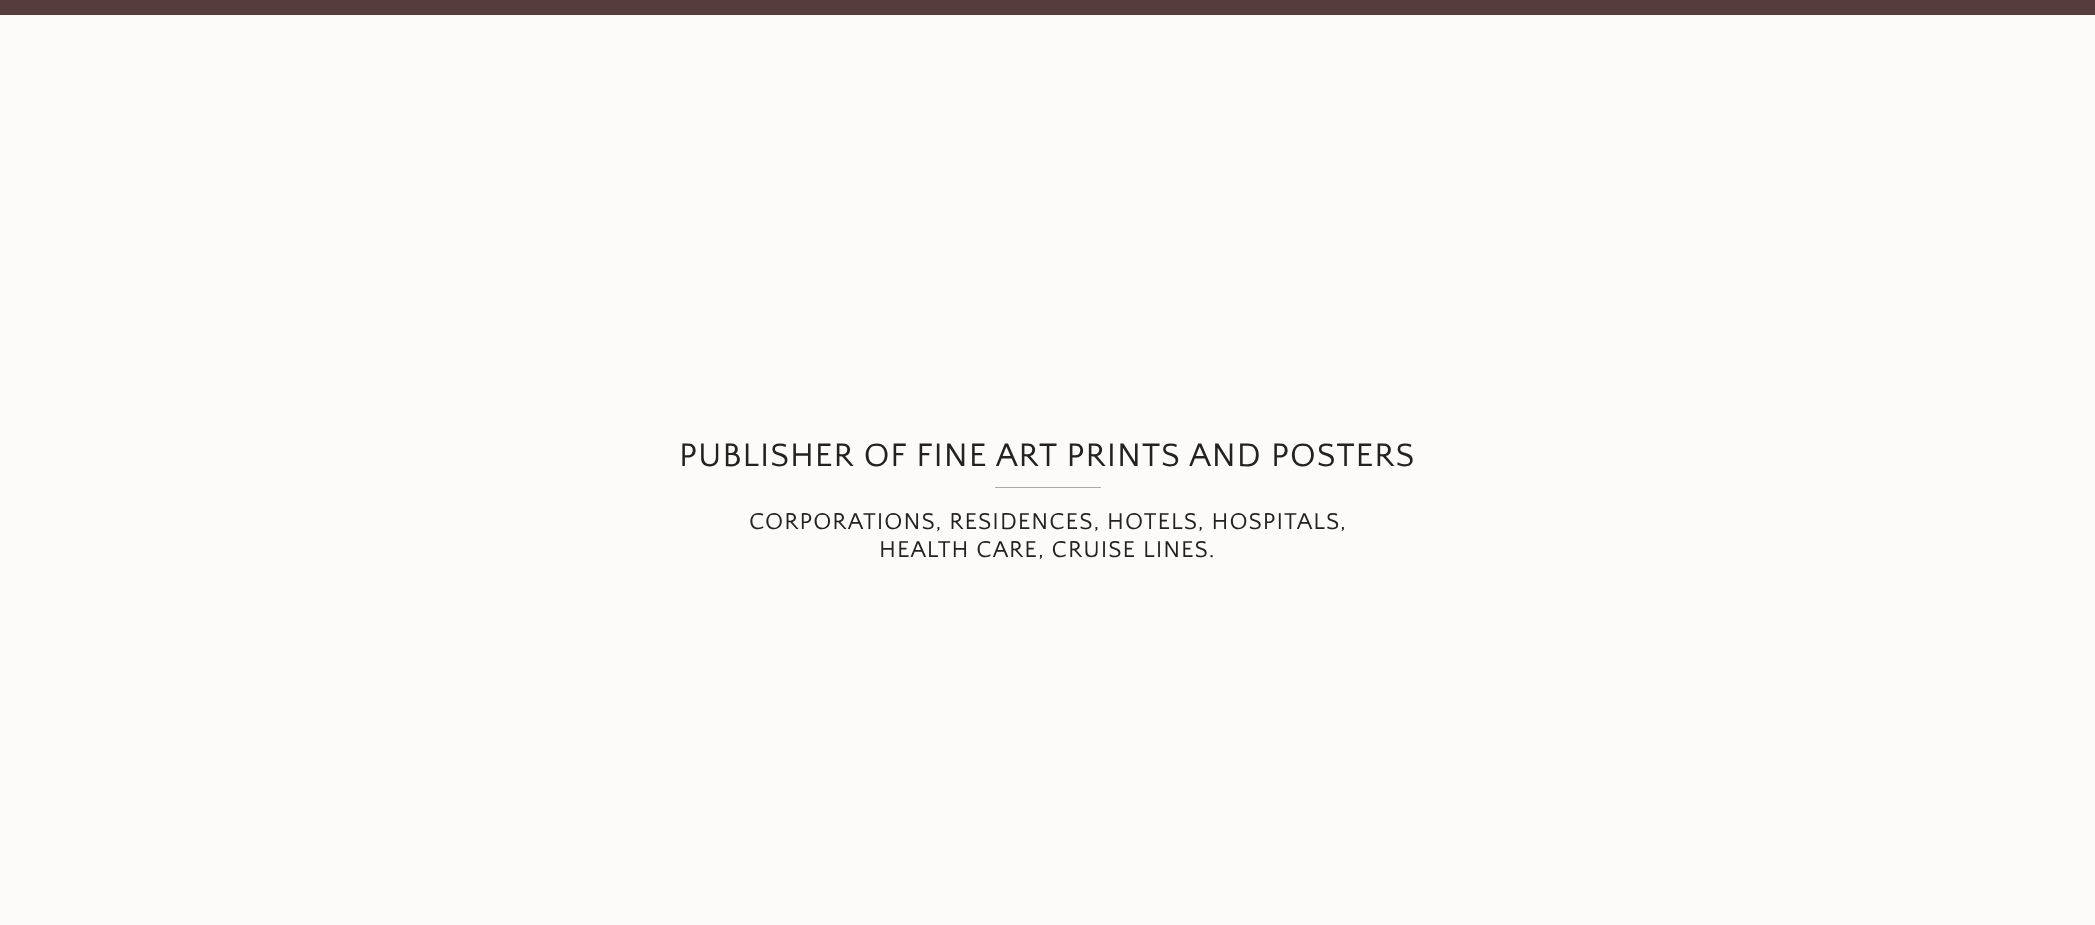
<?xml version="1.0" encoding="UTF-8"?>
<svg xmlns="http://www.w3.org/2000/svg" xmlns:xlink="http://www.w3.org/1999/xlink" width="2095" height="925">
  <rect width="100%" height="100%" fill="#fcfbf9" />
  <rect width="2095" height="15" fill="#553c3d" />
  <rect x="995" y="487" width="106" height="1" fill="#6bc1c4" />
  <text x="679" y="466" style="font-family: Quattrocento Sans; font-size: 34px; letter-spacing: 1px; fill: #222222">PUBLISHER OF FINE ART PRINTS AND POSTERS</text>
  <text x="749" y="529" style="font-family: Quattrocento Sans; font-size: 24px; letter-spacing: 1px; fill: #222222">CORPORATIONS, RESIDENCES, HOTELS, HOSPITALS,</text>
  <text x="879" y="557" style="font-family: Quattrocento Sans; font-size: 24px; letter-spacing: 1px; fill: #222222">HEALTH CARE, CRUISE LINES.</text>
</svg>
